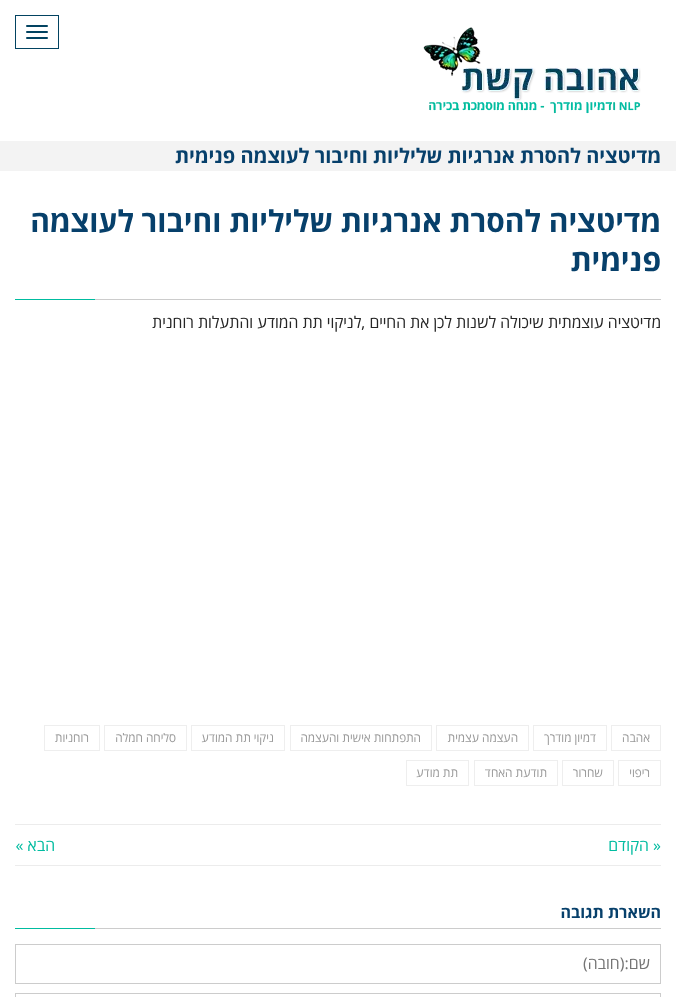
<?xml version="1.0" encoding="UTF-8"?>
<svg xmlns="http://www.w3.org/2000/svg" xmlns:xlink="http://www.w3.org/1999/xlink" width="676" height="997">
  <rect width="100%" height="100%" fill="#ffffff" />
  <image x="423" y="27" width="218" height="87" xlink:href="image1.png" />
  <rect x="15.5" y="15.5" width="43" height="33" fill="none" stroke="#024361" />
  <rect x="26" y="25" width="22" height="2" rx="1" fill="#024361" />
  <rect x="26" y="31" width="22" height="2" rx="1" fill="#024361" />
  <rect x="26" y="37" width="22" height="2" rx="1" fill="#024361" />
  <rect y="141" width="676" height="30" fill="#f3f3f3" />
  <rect x="95" y="299" width="566" height="1" fill="#cccccc" />
  <rect x="15" y="299" width="80" height="1" fill="#00bca0" />
  <rect x="611.5" y="725.5" width="49" height="25" fill="none" stroke="#eeeeee" />
  <rect x="533.5" y="725.5" width="73" height="25" fill="none" stroke="#eeeeee" />
  <rect x="436.5" y="725.5" width="92" height="25" fill="none" stroke="#eeeeee" />
  <rect x="290.5" y="725.5" width="141" height="25" fill="none" stroke="#eeeeee" />
  <rect x="191.5" y="725.5" width="93" height="25" fill="none" stroke="#eeeeee" />
  <rect x="104.5" y="725.5" width="82" height="25" fill="none" stroke="#eeeeee" />
  <rect x="44.5" y="725.5" width="55" height="25" fill="none" stroke="#eeeeee" />
  <rect x="618.5" y="760.5" width="42" height="25" fill="none" stroke="#eeeeee" />
  <rect x="562.5" y="760.5" width="51" height="25" fill="none" stroke="#eeeeee" />
  <rect x="474.5" y="760.5" width="83" height="25" fill="none" stroke="#eeeeee" />
  <rect x="406.5" y="760.5" width="62" height="25" fill="none" stroke="#eeeeee" />
  <rect x="15" y="824" width="646" height="1" fill="#ececec" />
  <rect x="15" y="865" width="646" height="1" fill="#ececec" />
  <rect x="95" y="928" width="566" height="1" fill="#cccccc" />
  <rect x="15" y="928" width="80" height="1" fill="#00bca0" />
  <rect x="15.5" y="944.5" width="645" height="39" fill="none" stroke="#cccccc" />
  <rect x="15.5" y="993.5" width="645" height="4" fill="none" stroke="#cccccc" />
  <text x="661" y="163" style="font-family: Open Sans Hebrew; font-size: 20px; font-weight: bold; direction: rtl; fill: #07406b">מדיטציה להסרת אנרגיות שליליות וחיבור לעוצמה פנימית</text>
  <text x="661" y="232" style="font-family: Open Sans Hebrew; font-size: 30px; font-weight: bold; direction: rtl; fill: #07406b">מדיטציה להסרת אנרגיות שליליות וחיבור לעוצמה</text>
  <text x="661" y="271" style="font-family: Open Sans Hebrew; font-size: 30px; font-weight: bold; direction: rtl; fill: #07406b">פנימית</text>
  <text x="661" y="328" style="font-family: Open Sans Hebrew; font-size: 16px; direction: rtl; fill: #262626">מדיטציה עוצמתית שיכולה לשנות לכן את החיים ,לניקוי תת המודע והתעלות רוחנית</text>
  <text x="650" y="742" style="font-family: Open Sans Hebrew; font-size: 12px; direction: rtl; fill: #999999">אהבה</text>
  <text x="596" y="742" style="font-family: Open Sans Hebrew; font-size: 12px; direction: rtl; fill: #999999">דמיון מודרך</text>
  <text x="518" y="742" style="font-family: Open Sans Hebrew; font-size: 12px; direction: rtl; fill: #999999">העצמה עצמית</text>
  <text x="421" y="742" style="font-family: Open Sans Hebrew; font-size: 12px; direction: rtl; fill: #999999">התפתחות אישית והעצמה</text>
  <text x="274" y="742" style="font-family: Open Sans Hebrew; font-size: 12px; direction: rtl; fill: #999999">ניקוי תת המודע</text>
  <text x="176" y="742" style="font-family: Open Sans Hebrew; font-size: 12px; direction: rtl; fill: #999999">סליחה חמלה</text>
  <text x="89" y="742" style="font-family: Open Sans Hebrew; font-size: 12px; direction: rtl; fill: #999999">רוחניות</text>
  <text x="650" y="777" style="font-family: Open Sans Hebrew; font-size: 12px; direction: rtl; fill: #999999">ריפוי</text>
  <text x="603" y="777" style="font-family: Open Sans Hebrew; font-size: 12px; direction: rtl; fill: #999999">שחרור</text>
  <text x="547" y="777" style="font-family: Open Sans Hebrew; font-size: 12px; direction: rtl; fill: #999999">תודעת האחד</text>
  <text x="458" y="777" style="font-family: Open Sans Hebrew; font-size: 12px; direction: rtl; fill: #999999">תת מודע</text>
  <text x="661" y="851" style="font-family: Open Sans Hebrew; font-size: 16px; direction: rtl; fill: #00bca0">« הקודם</text>
  <text x="55" y="851" style="font-family: Open Sans Hebrew; font-size: 16px; direction: rtl; fill: #00bca0">הבא »</text>
  <text x="661" y="918" style="font-family: Open Sans Hebrew; font-size: 16px; font-weight: bold; direction: rtl; fill: #07406b">השארת תגובה</text>
  <text x="650" y="969" style="font-family: Open Sans Hebrew; font-size: 16px; direction: rtl; fill: #757575">שם:(חובה)</text>
</svg>
